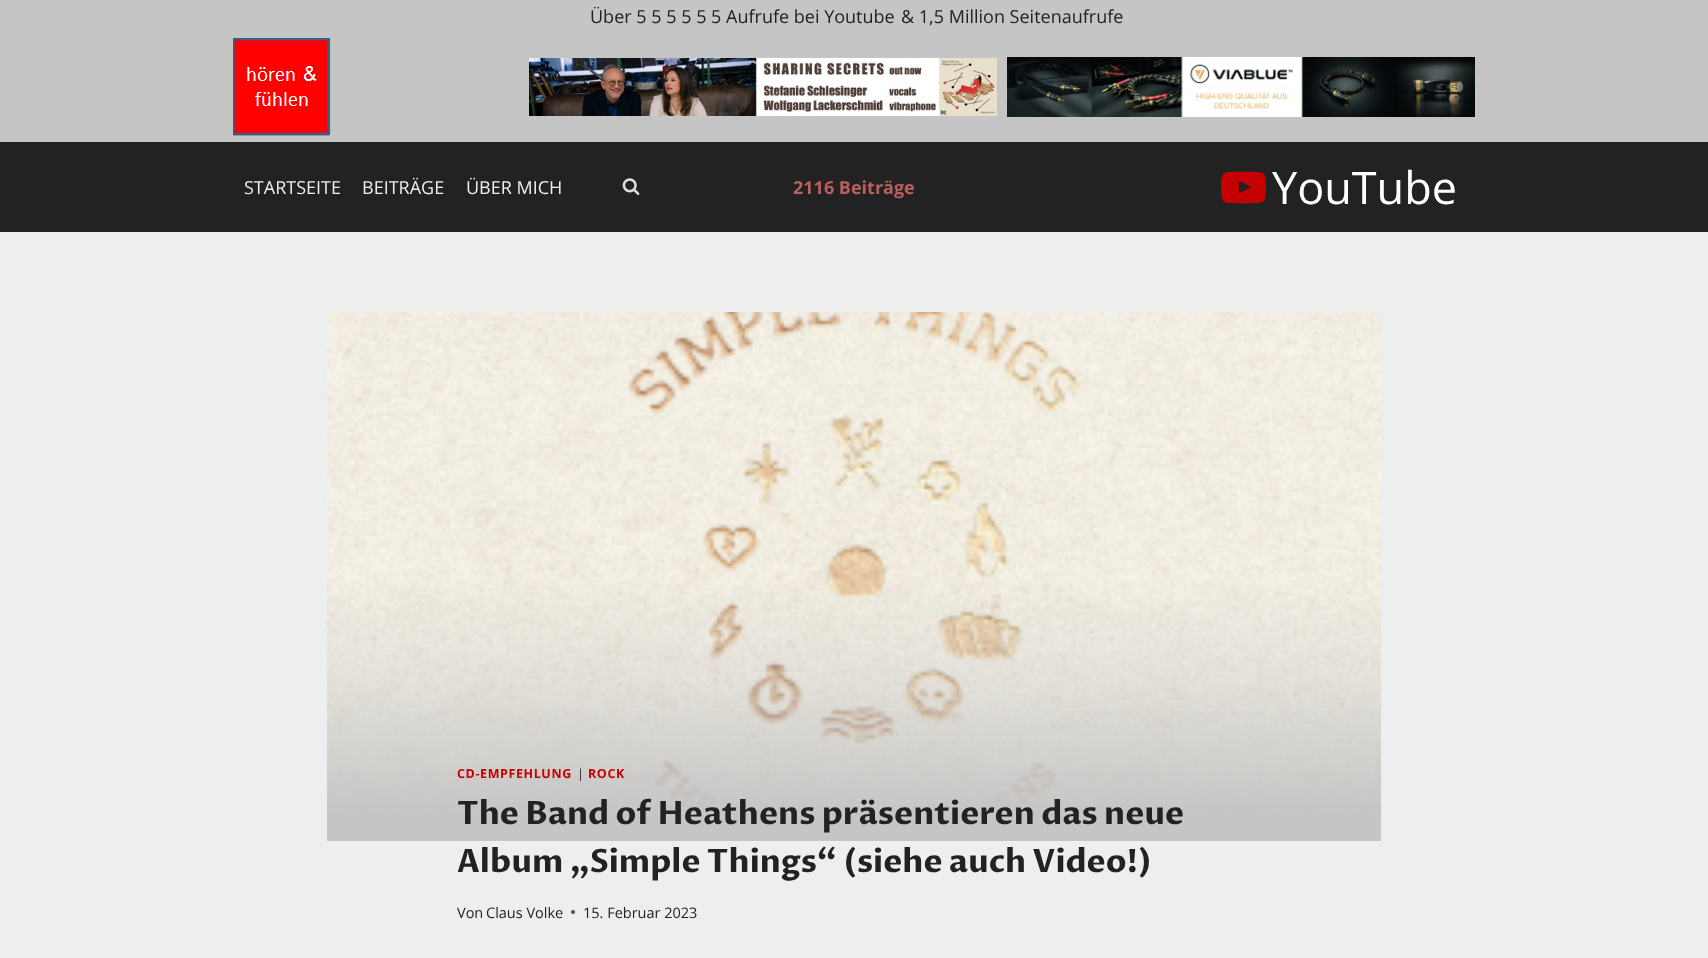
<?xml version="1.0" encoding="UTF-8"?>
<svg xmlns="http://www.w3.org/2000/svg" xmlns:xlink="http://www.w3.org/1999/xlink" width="1708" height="958">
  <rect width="100%" height="100%" fill="#eeeeee" />
  <rect width="1708" height="142" fill="#c5c5c5" />
  <image x="233" y="38" width="98" height="98" xlink:href="image1.png" />
  <image x="529" y="58" width="468" height="58" xlink:href="image2.png" />
  <image x="1007" y="57" width="468" height="60" xlink:href="image3.png" />
  <rect y="142" width="1708" height="90" fill="#222222" />
  <image x="622" y="178" width="18" height="17" xlink:href="image4.png" />
  <image x="1221" y="171" width="45" height="33" xlink:href="image5.png" />
  <image x="327" y="312" width="1054" height="529" xlink:href="image6.png" />
  <circle cx="573" cy="912" r="2" fill="#4b4b4b" />
  <text x="590" y="23" style="font-family: Open Sans; font-size: 18px; fill: #222222">Über 5 5 5 5 5 5 Aufrufe bei Youtube</text>
  <text x="901" y="23" style="font-family: Open Sans; font-size: 18px; fill: #222222">&amp; 1,5 Million Seitenaufrufe</text>
  <text x="244" y="194" style="font-family: Open Sans; font-size: 18px; fill: #eeeeee">STARTSEITE</text>
  <text x="362" y="194" style="font-family: Open Sans; font-size: 18px; fill: #eeeeee">BEITRÄGE</text>
  <text x="466" y="194" style="font-family: Open Sans; font-size: 18px; fill: #eeeeee">ÜBER MICH</text>
  <text x="793" y="194" style="font-family: Open Sans; font-size: 18px; font-weight: bold; fill: #ba5f5f">2116 Beiträge</text>
  <text x="1272" y="204" style="font-family: Open Sans; font-size: 45px; fill: #ffffff">YouTube</text>
  <text x="457" y="778" style="font-family: Open Sans; font-size: 12.5px; font-weight: bold; letter-spacing: 0.6px; fill: #c50000">CD-EMPFEHLUNG</text>
  <text x="577" y="778" style="font-family: Open Sans; font-size: 12.5px; letter-spacing: 0.6px; fill: #222222">|</text>
  <text x="588" y="778" style="font-family: Open Sans; font-size: 12.5px; font-weight: bold; letter-spacing: 0.6px; fill: #c50000">ROCK</text>
  <text x="457" y="824" style="font-family: Proza Libre; font-size: 32px; font-weight: bold; fill: #222222">The Band of Heathens präsentieren das neue</text>
  <text x="457" y="872" style="font-family: Proza Libre; font-size: 32px; font-weight: bold; fill: #222222">Album „Simple Things“ (siehe auch Video!)</text>
  <text x="457" y="918" style="font-family: Open Sans; font-size: 14.5px; fill: #222222">Von</text>
  <text x="486" y="918" style="font-family: Open Sans; font-size: 14.5px; fill: #222222">Claus Volke</text>
  <text x="583" y="918" style="font-family: Open Sans; font-size: 14.5px; fill: #222222">15. Februar 2023</text>
</svg>
